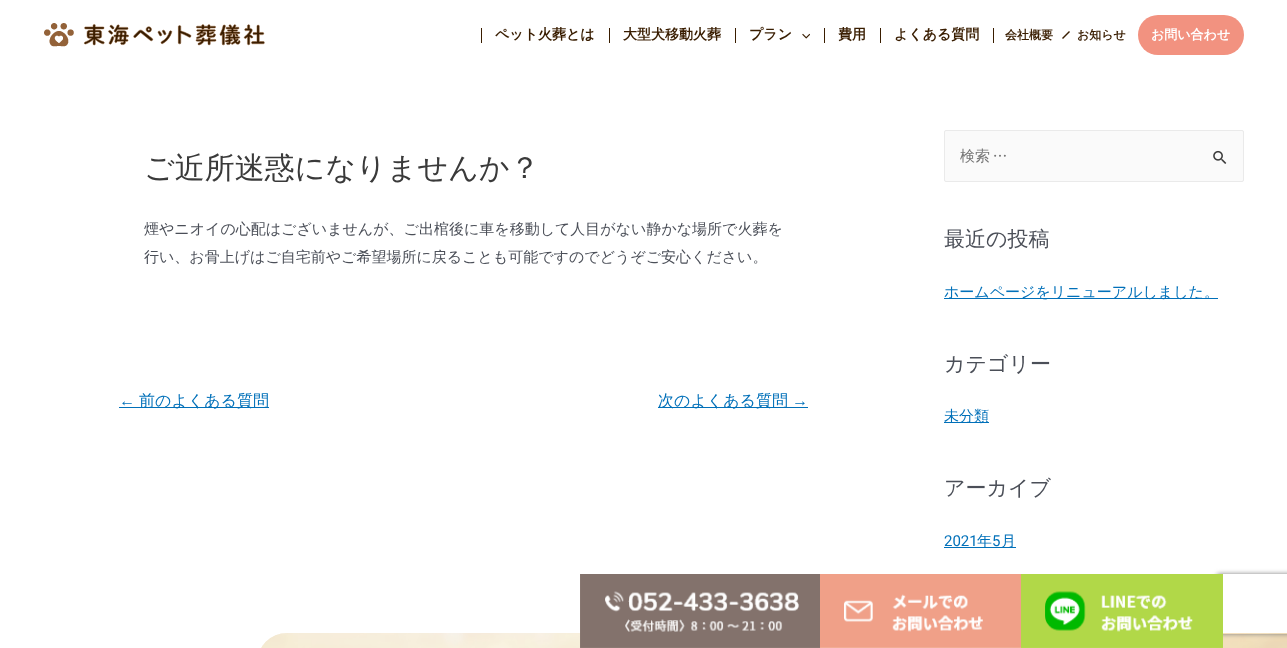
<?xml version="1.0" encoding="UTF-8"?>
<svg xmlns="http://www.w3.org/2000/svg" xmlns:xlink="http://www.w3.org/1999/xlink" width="1287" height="648">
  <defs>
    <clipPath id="clip1"><path d="M 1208 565 h 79 v 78 h -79 z m 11 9 h 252 c 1 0 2 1 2 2 v 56 c 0 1 -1 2 -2 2 h -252 c -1 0 -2 -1 -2 -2 v -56 c 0 -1 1 -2 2 -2 z" clip-rule="evenodd" /></clipPath>
  </defs>
  <rect width="100%" height="100%" fill="#ffffff" />
  <image x="44" y="23" width="221" height="24" xlink:href="image1.png" />
  <rect x="481" y="28" width="1" height="15" fill="#391d00" />
  <rect x="609" y="28" width="1" height="15" fill="#391d00" />
  <rect x="735" y="28" width="1" height="15" fill="#391d00" />
  <image x="802" y="33" width="8" height="6" xlink:href="image2.png" />
  <rect x="824" y="28" width="1" height="15" fill="#391d00" />
  <rect x="880" y="28" width="1" height="15" fill="#391d00" />
  <rect x="993" y="28" width="1" height="15" fill="#391d00" />
  <path d="M 1069 31 l 1 1 l -7 7 l -1 -1 z" fill="#391d00" />
  <rect x="1138" y="15" width="106" height="40" rx="20" fill="#f29280" />
  <rect x="119" y="407" width="150" height="1" fill="#0170b9" />
  <rect x="658" y="407" width="150" height="1" fill="#0170b9" />
  <rect x="944.5" y="130.5" width="299" height="51" rx="1.5" fill="#fafafa" stroke="#eaeaea" />
  <image x="1213" y="150" width="14" height="14" xlink:href="image3.png" />
  <rect x="944" y="298" width="274" height="1" fill="#0170b9" />
  <rect x="944" y="422" width="45" height="1" fill="#0170b9" />
  <rect x="944" y="547" width="72" height="1" fill="#0170b9" />
  <image x="261" y="633" width="1026" height="15" xlink:href="image7.png" />
  <path d="M 287 633 h 1000 v 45 h -1030 v -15 c 0 -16.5 13.5 -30 30 -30 z" fill="#ffffff" fill-opacity="0.3" />
  <image x="580" y="574" width="241" height="74" xlink:href="image4.png" />
  <image x="820" y="574" width="201" height="74" xlink:href="image5.png" />
  <g clip-path="url(#clip1)">
    <rect x="1217" y="574" width="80" height="60" rx="2" fill="#808080" filter="blur(2.5px)" />
  </g>
  <image x="1021" y="574" width="202" height="74" xlink:href="image6.png" />
  <text x="495" y="39" style="font-family: WenQuanYi Zen Hei; font-size: 14px; font-weight: bold; fill: #391d00">ペット火葬とは</text>
  <text x="623" y="39" style="font-family: WenQuanYi Zen Hei; font-size: 14px; font-weight: bold; fill: #391d00">大型犬移動火葬</text>
  <text x="749" y="39" style="font-family: WenQuanYi Zen Hei; font-size: 14px; font-weight: bold; fill: #391d00">プラン</text>
  <text x="838" y="39" style="font-family: WenQuanYi Zen Hei; font-size: 14px; font-weight: bold; fill: #391d00">費用</text>
  <text x="894" y="39" style="font-family: WenQuanYi Zen Hei; font-size: 14px; font-weight: bold; fill: #391d00">よくある質問</text>
  <text x="1005" y="39" style="font-family: WenQuanYi Zen Hei; font-size: 12px; font-weight: bold; fill: #391d00">会社概要</text>
  <text x="1077" y="39" style="font-family: WenQuanYi Zen Hei; font-size: 12px; font-weight: bold; fill: #391d00">お知らせ</text>
  <text x="1151" y="39" style="font-family: WenQuanYi Zen Hei; font-size: 13px; font-weight: bold; fill: #ffffff">お問い合わせ</text>
  <text x="144" y="178" style="font-family: WenQuanYi Zen Hei; font-size: 30px; font-weight: 500; fill: #3a3a3a">ご近所迷惑になりませんか？</text>
  <text x="144" y="234" style="font-family: WenQuanYi Zen Hei; font-size: 15px; font-weight: 500; fill: #4b4f58">煙やニオイの心配はございませんが、ご出棺後に車を移動して人目がない静かな場所で火葬を</text>
  <text x="144" y="262" style="font-family: WenQuanYi Zen Hei; font-size: 15px; font-weight: 500; fill: #4b4f58">行い、お骨上げはご自宅前やご希望場所に戻ることも可能ですのでどうぞご安心ください。</text>
  <text x="119" y="406" style="font-family: Liberation Sans; font-size: 16px; fill: #0170b9">←</text>
  <text x="139" y="406" style="font-family: WenQuanYi Zen Hei; font-size: 16px; font-weight: 500; fill: #0170b9">前のよくある質問</text>
  <text x="658" y="406" style="font-family: WenQuanYi Zen Hei; font-size: 16px; font-weight: 500; fill: #0170b9">次のよくある質問</text>
  <text x="792" y="406" style="font-family: Liberation Sans; font-size: 16px; fill: #0170b9">→</text>
  <text x="960" y="161" word-spacing="-2" style="font-family: WenQuanYi Zen Hei; font-size: 15px; font-weight: 500; fill: #757575">検索 …</text>
  <text x="944" y="246" style="font-family: WenQuanYi Zen Hei; font-size: 21px; font-weight: 500; fill: #4b4f58">最近の投稿</text>
  <text x="944" y="297" style="font-family: WenQuanYi Zen Hei; font-size: 15px; font-weight: 500; fill: #0170b9">ホームページをリニューアルしました。</text>
  <text x="944" y="371" style="font-family: WenQuanYi Zen Hei; font-size: 21px; font-weight: 500; fill: #4b4f58">カテゴリー</text>
  <text x="944" y="421" style="font-family: WenQuanYi Zen Hei; font-size: 15px; font-weight: 500; fill: #0170b9">未分類</text>
  <text x="944" y="495" style="font-family: WenQuanYi Zen Hei; font-size: 21px; font-weight: 500; fill: #4b4f58">アーカイブ</text>
  <text x="944" y="546" style="font-family: Roboto; font-size: 15px; fill: #0170b9">2021</text>
  <text x="977" y="546" style="font-family: WenQuanYi Zen Hei; font-size: 15px; font-weight: 500; fill: #0170b9">年</text>
  <text x="992" y="546" style="font-family: Roboto; font-size: 15px; fill: #0170b9">5</text>
  <text x="1001" y="546" style="font-family: WenQuanYi Zen Hei; font-size: 15px; font-weight: 500; fill: #0170b9">月</text>
</svg>
